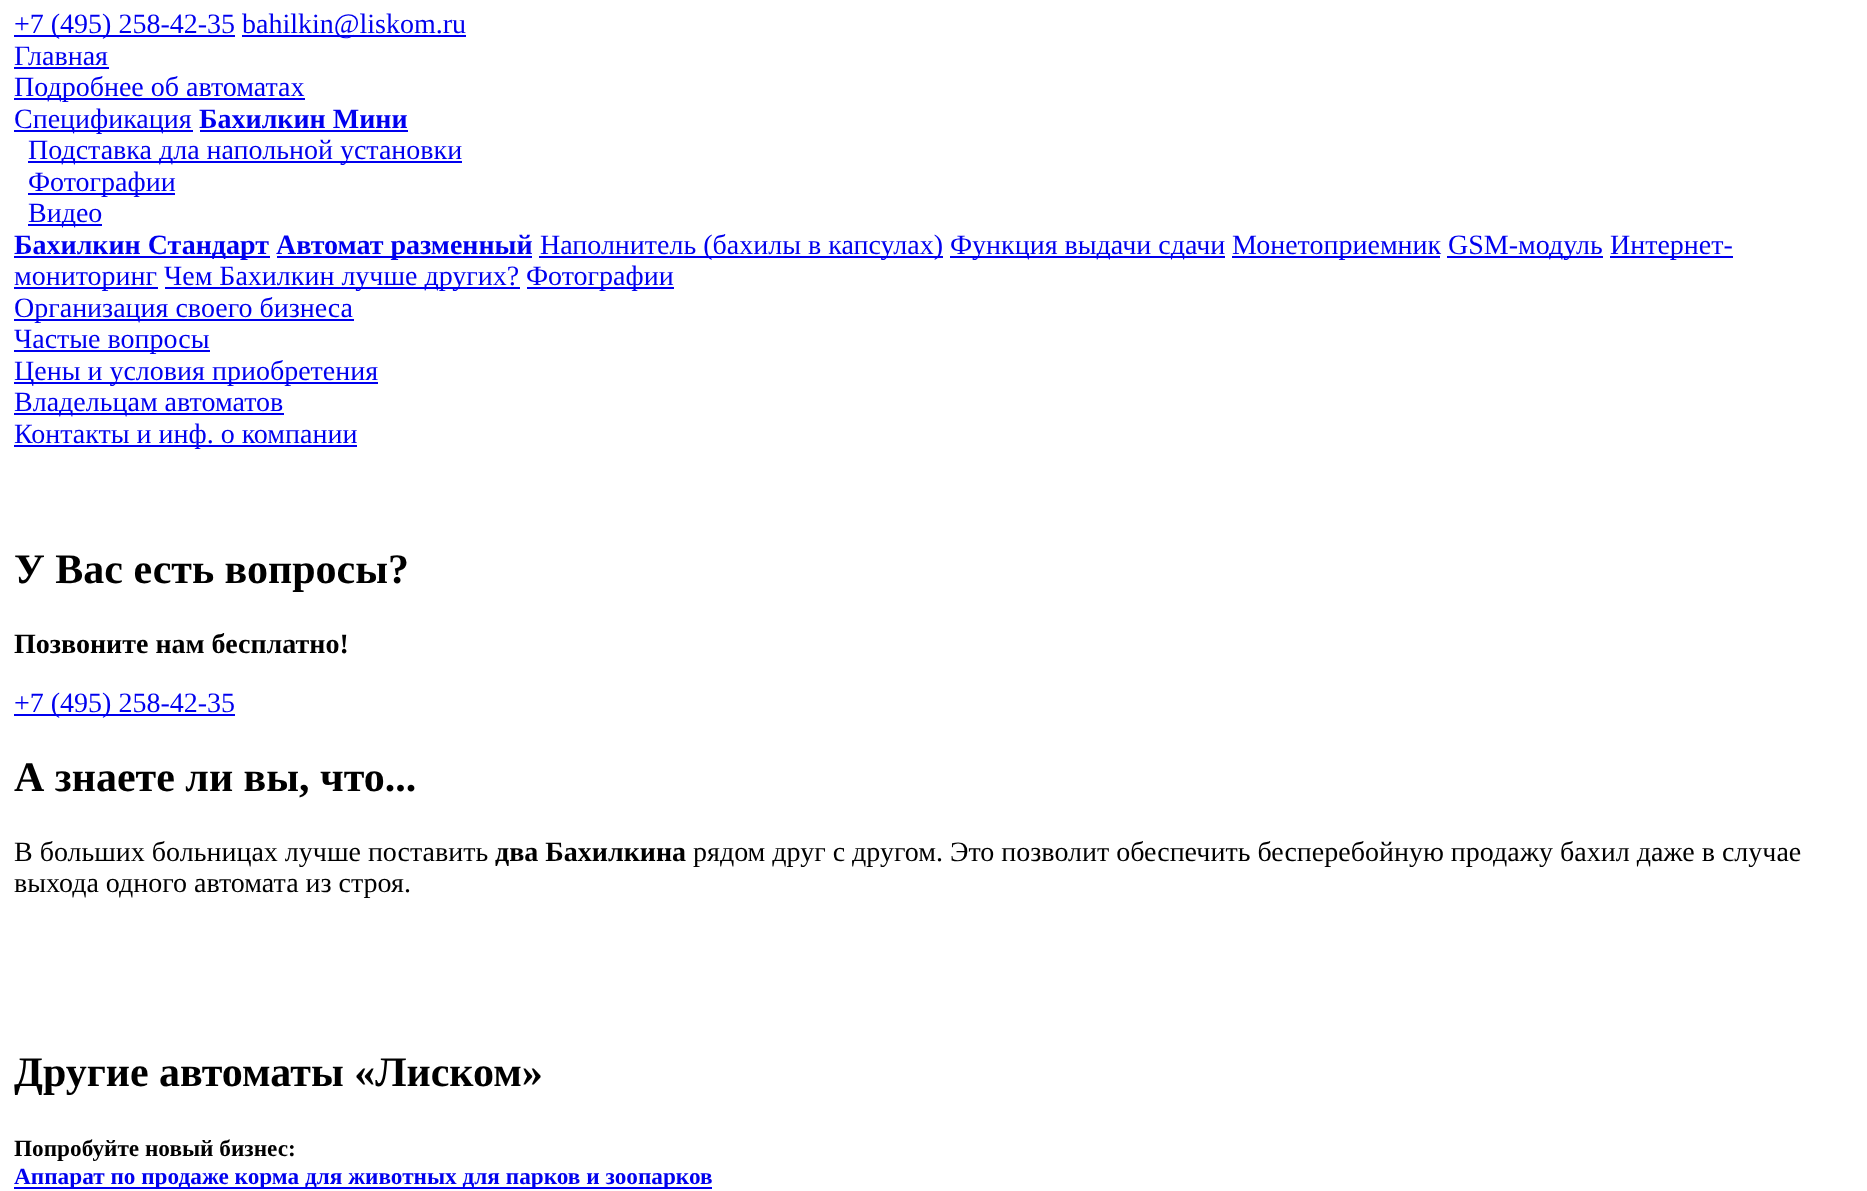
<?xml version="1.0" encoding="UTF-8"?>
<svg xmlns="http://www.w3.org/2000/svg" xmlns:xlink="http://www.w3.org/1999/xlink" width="1867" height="1191">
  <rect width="100%" height="100%" fill="#ffffff" />
  <rect x="14" y="35" width="221" height="2" fill="#0000ee" />
  <rect x="242" y="35" width="224" height="2" fill="#0000ee" />
  <rect x="14" y="67" width="95" height="2" fill="#0000ee" />
  <rect x="14" y="98" width="291" height="2" fill="#0000ee" />
  <rect x="14" y="130" width="179" height="2" fill="#0000ee" />
  <rect x="200" y="130" width="208" height="2" fill="#0000ee" />
  <rect x="28" y="161" width="434" height="2" fill="#0000ee" />
  <rect x="28" y="193" width="147" height="2" fill="#0000ee" />
  <rect x="28" y="224" width="74" height="2" fill="#0000ee" />
  <rect x="14" y="256" width="256" height="2" fill="#0000ee" />
  <rect x="277" y="256" width="255" height="2" fill="#0000ee" />
  <rect x="539" y="256" width="404" height="2" fill="#0000ee" />
  <rect x="950" y="256" width="275" height="2" fill="#0000ee" />
  <rect x="1232" y="256" width="208" height="2" fill="#0000ee" />
  <rect x="1447" y="256" width="156" height="2" fill="#0000ee" />
  <rect x="1610" y="256" width="123" height="2" fill="#0000ee" />
  <rect x="14" y="287" width="144" height="2" fill="#0000ee" />
  <rect x="165" y="287" width="355" height="2" fill="#0000ee" />
  <rect x="527" y="287" width="147" height="2" fill="#0000ee" />
  <rect x="14" y="319" width="340" height="2" fill="#0000ee" />
  <rect x="14" y="350" width="196" height="2" fill="#0000ee" />
  <rect x="14" y="382" width="364" height="2" fill="#0000ee" />
  <rect x="14" y="413" width="270" height="2" fill="#0000ee" />
  <rect x="14" y="445" width="343" height="2" fill="#0000ee" />
  <rect x="14" y="714" width="221" height="2" fill="#0000ee" />
  <rect x="14" y="1187" width="698" height="2" fill="#0000ee" />
  <text x="14" y="33" style="font-family: Liberation Serif; font-size: 28px; fill: #0000ee">+7 (495) 258-42-35</text>
  <text x="242" y="33" style="font-family: Liberation Serif; font-size: 28px; fill: #0000ee">bahilkin@liskom.ru</text>
  <text x="14" y="65" style="font-family: Liberation Serif; font-size: 28px; fill: #0000ee">Главная</text>
  <text x="14" y="96" style="font-family: Liberation Serif; font-size: 28px; fill: #0000ee">Подробнее об автоматах</text>
  <text x="14" y="128" style="font-family: Liberation Serif; font-size: 28px; fill: #0000ee">Спецификация</text>
  <text x="199" y="128" style="font-family: Liberation Serif; font-size: 28px; font-weight: bold; fill: #0000ee">Бахилкин Мини</text>
  <text x="28" y="159" style="font-family: Liberation Serif; font-size: 28px; fill: #0000ee">Подставка дла напольной установки</text>
  <text x="28" y="191" style="font-family: Liberation Serif; font-size: 28px; fill: #0000ee">Фотографии</text>
  <text x="28" y="222" style="font-family: Liberation Serif; font-size: 28px; fill: #0000ee">Видео</text>
  <text x="14" y="254" style="font-family: Liberation Serif; font-size: 28px; font-weight: bold; fill: #0000ee">Бахилкин Стандарт</text>
  <text x="276" y="254" style="font-family: Liberation Serif; font-size: 28px; font-weight: bold; fill: #0000ee">Автомат разменный</text>
  <text x="540" y="254" style="font-family: Liberation Serif; font-size: 28px; fill: #0000ee">Наполнитель (бахилы в капсулах)</text>
  <text x="950" y="254" style="font-family: Liberation Serif; font-size: 28px; fill: #0000ee">Функция выдачи сдачи</text>
  <text x="1232" y="254" style="font-family: Liberation Serif; font-size: 28px; fill: #0000ee">Монетоприемник</text>
  <text x="1448" y="254" style="font-family: Liberation Serif; font-size: 28px; fill: #0000ee">GSM-модуль</text>
  <text x="1610" y="254" style="font-family: Liberation Serif; font-size: 28px; fill: #0000ee">Интернет-</text>
  <text x="14" y="285" style="font-family: Liberation Serif; font-size: 28px; fill: #0000ee">мониторинг</text>
  <text x="164" y="285" style="font-family: Liberation Serif; font-size: 28px; fill: #0000ee">Чем Бахилкин лучше других?</text>
  <text x="526" y="285" style="font-family: Liberation Serif; font-size: 28px; fill: #0000ee">Фотографии</text>
  <text x="14" y="317" style="font-family: Liberation Serif; font-size: 28px; fill: #0000ee">Организация своего бизнеса</text>
  <text x="14" y="348" style="font-family: Liberation Serif; font-size: 28px; fill: #0000ee">Частые вопросы</text>
  <text x="14" y="380" style="font-family: Liberation Serif; font-size: 28px; fill: #0000ee">Цены и условия приобретения</text>
  <text x="14" y="411" style="font-family: Liberation Serif; font-size: 28px; fill: #0000ee">Владельцам автоматов</text>
  <text x="14" y="443" style="font-family: Liberation Serif; font-size: 28px; fill: #0000ee">Контакты и инф. о компании</text>
  <text x="14" y="583" style="font-family: Liberation Serif; font-size: 42px; font-weight: bold; fill: #000000">У Вас есть вопросы?</text>
  <text x="14" y="653" style="font-family: Liberation Serif; font-size: 28px; font-weight: bold; fill: #000000">Позвоните нам бесплатно!</text>
  <text x="14" y="712" style="font-family: Liberation Serif; font-size: 28px; fill: #0000ee">+7 (495) 258-42-35</text>
  <text x="14" y="791" style="font-family: Liberation Serif; font-size: 42px; font-weight: bold; fill: #000000">А знаете ли вы, что...</text>
  <text x="14" y="861" style="font-family: Liberation Serif; font-size: 28px; fill: #000000">В больших больницах лучше поставить</text>
  <text x="495" y="861" style="font-family: Liberation Serif; font-size: 28px; font-weight: bold; fill: #000000">два Бахилкина</text>
  <text x="693" y="861" style="font-family: Liberation Serif; font-size: 28px; fill: #000000">рядом друг с другом. Это позволит обеспечить бесперебойную продажу бахил даже в случае</text>
  <text x="14" y="892" style="font-family: Liberation Serif; font-size: 28px; fill: #000000">выхода одного автомата из строя.</text>
  <text x="14" y="1086" style="font-family: Liberation Serif; font-size: 42px; font-weight: bold; fill: #000000">Другие автоматы «Лиском»</text>
  <text x="14" y="1156" style="font-family: Liberation Serif; font-size: 23.25px; font-weight: bold; fill: #000000">Попробуйте новый бизнес:</text>
  <text x="14" y="1184" style="font-family: Liberation Serif; font-size: 23.25px; font-weight: bold; fill: #0000ee">Аппарат по продаже корма для животных для парков и зоопарков</text>
</svg>
